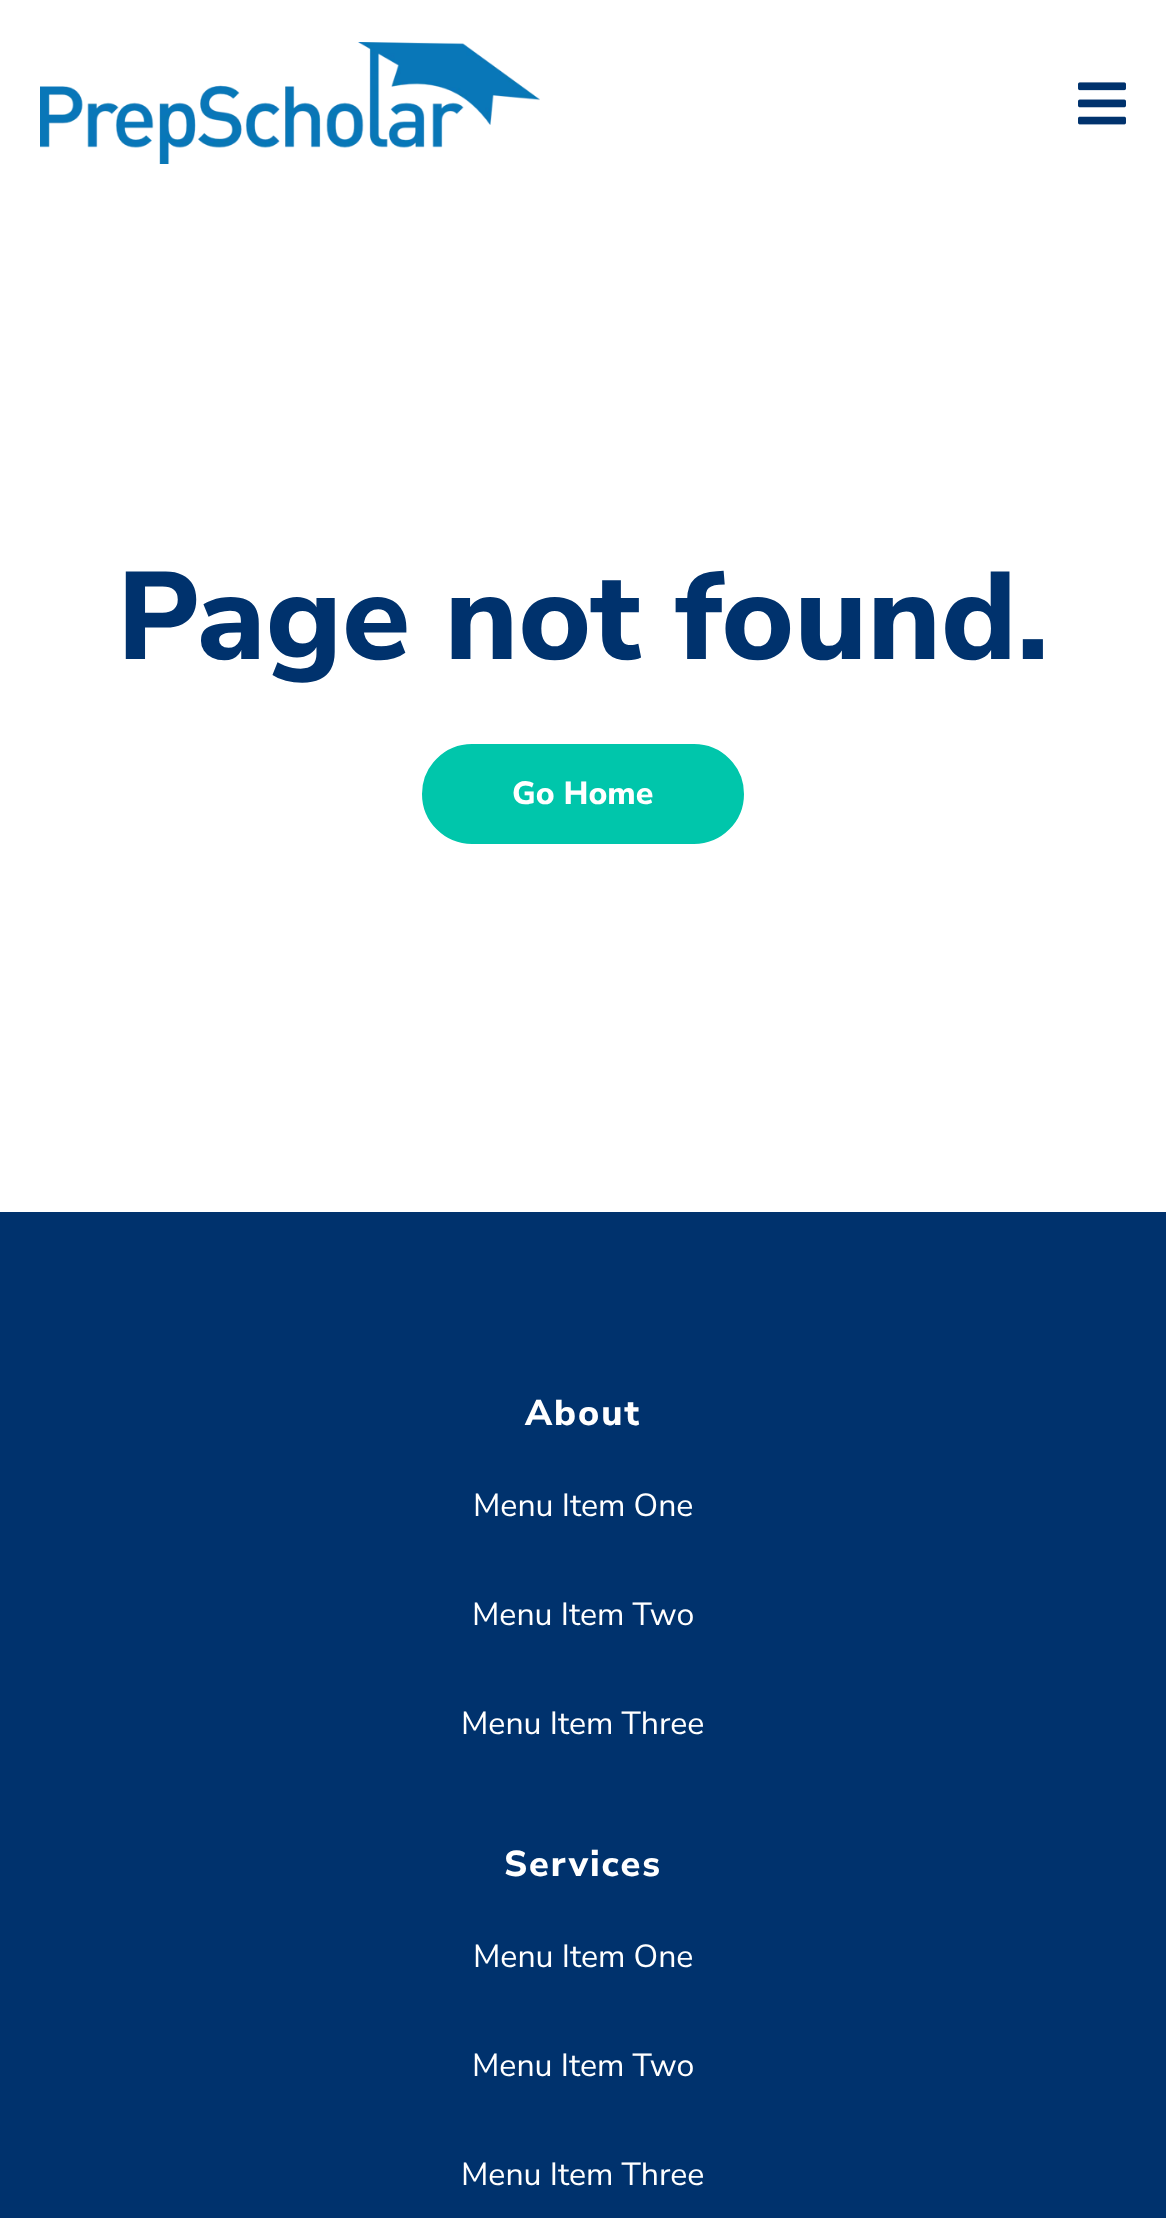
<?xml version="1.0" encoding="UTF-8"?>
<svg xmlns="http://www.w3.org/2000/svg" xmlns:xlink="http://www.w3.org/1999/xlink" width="1166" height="2218">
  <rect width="100%" height="100%" fill="#ffffff" />
  <image x="40" y="42" width="500" height="122" xlink:href="image1.png" />
  <image x="1078" y="82" width="48" height="43" xlink:href="image2.png" />
  <rect x="423" y="745" width="320" height="98" rx="49" fill="#00c6ab" stroke="#00c6ab" stroke-width="2" />
  <rect y="1212" width="1166" height="1006" fill="#00326d" />
  <text x="117" y="659" style="font-family: Nunito Sans; font-size: 124px; font-weight: 800; fill: #00326d">Page not found.</text>
  <text x="512" y="804" style="font-family: Nunito Sans; font-size: 32px; font-weight: 800; fill: #ffffff">Go Home</text>
  <text x="525" y="1425" style="font-family: Nunito Sans; font-size: 36px; font-weight: 800; letter-spacing: 2px; fill: #ffffff">About</text>
  <text x="473" y="1516" style="font-family: Nunito Sans; font-size: 32px; fill: #ffffff">Menu Item One</text>
  <text x="472" y="1625" style="font-family: Nunito Sans; font-size: 32px; fill: #ffffff">Menu Item Two</text>
  <text x="461" y="1734" style="font-family: Nunito Sans; font-size: 32px; fill: #ffffff">Menu Item Three</text>
  <text x="504" y="1876" style="font-family: Nunito Sans; font-size: 36px; font-weight: 800; letter-spacing: 2px; fill: #ffffff">Services</text>
  <text x="473" y="1967" style="font-family: Nunito Sans; font-size: 32px; fill: #ffffff">Menu Item One</text>
  <text x="472" y="2076" style="font-family: Nunito Sans; font-size: 32px; fill: #ffffff">Menu Item Two</text>
  <text x="461" y="2185" style="font-family: Nunito Sans; font-size: 32px; fill: #ffffff">Menu Item Three</text>
</svg>
